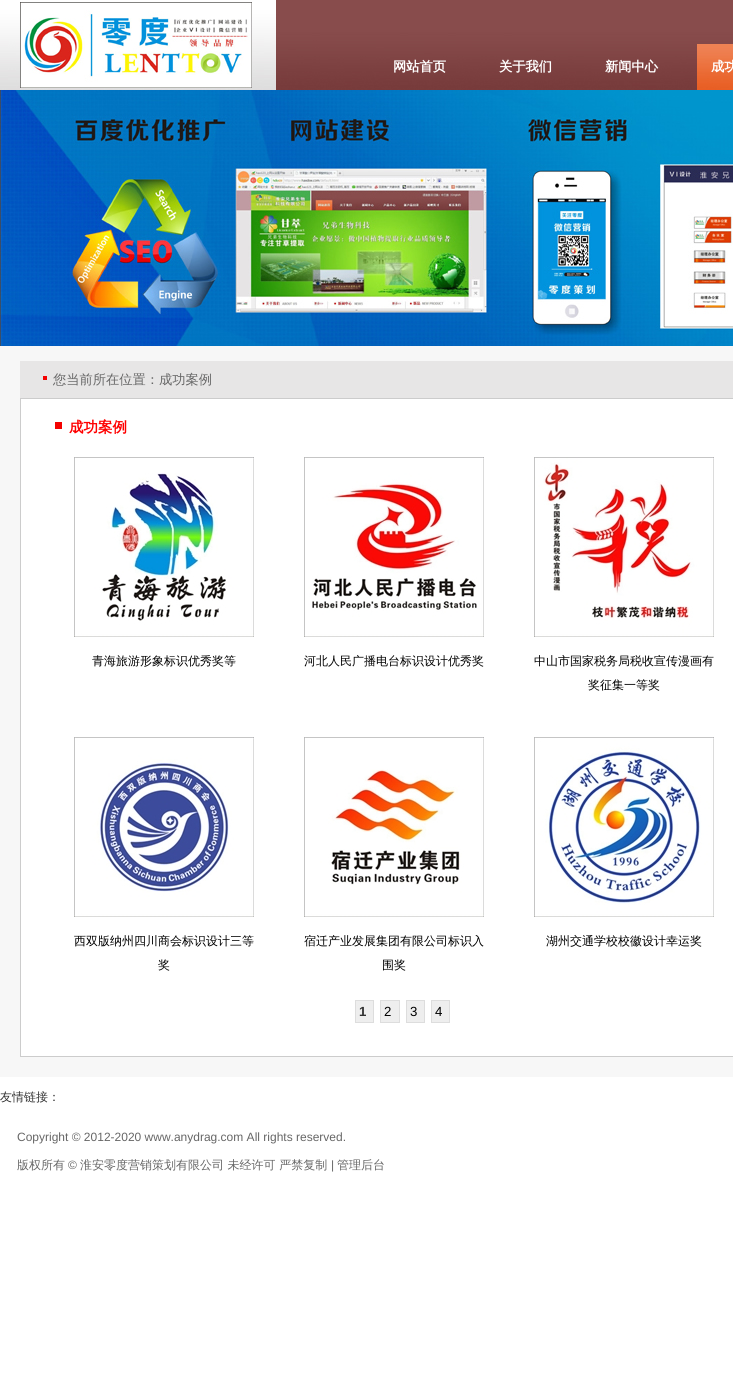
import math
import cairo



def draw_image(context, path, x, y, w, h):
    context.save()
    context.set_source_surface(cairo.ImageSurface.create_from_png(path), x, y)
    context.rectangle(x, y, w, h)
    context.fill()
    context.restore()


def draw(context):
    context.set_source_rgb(1, 1, 1)
    context.paint()
    draw_image(context, "images/1.png", 0, 0, 733, 90)
    draw_image(context, "images/2.png", 20, 2, 232, 86)
    draw_image(context, "images/3.png", 697, 44, 36, 46)
    draw_image(context, "images/4.png", 0, 90, 733, 256)
    context.set_source_rgb(247 / 255, 247 / 255, 247 / 255)
    context.rectangle(0, 346, 733, 731)
    context.fill()
    context.set_source_rgb(231 / 255, 230 / 255, 230 / 255)
    context.rectangle(20, 361, 713, 37)
    context.fill()
    context.set_source_rgb(244 / 255, 2 / 255, 1 / 255)
    context.rectangle(43, 376, 4, 4)
    context.fill()
    context.set_source_rgb(204 / 255, 204 / 255, 204 / 255)
    context.rectangle(20, 398, 713, 1)
    context.fill()
    context.set_source_rgb(1, 1, 1)
    context.rectangle(21, 399, 712, 657)
    context.fill()
    context.set_source_rgb(204 / 255, 204 / 255, 204 / 255)
    context.rectangle(20, 1056, 713, 1)
    context.fill()
    context.rectangle(20, 399, 1, 657)
    context.fill()
    context.set_source_rgb(244 / 255, 2 / 255, 1 / 255)
    context.rectangle(55, 422, 7, 7)
    context.fill()
    draw_image(context, "images/5.png", 74, 457, 180, 180)
    draw_image(context, "images/6.png", 304, 457, 180, 180)
    draw_image(context, "images/7.png", 534, 457, 180, 180)
    draw_image(context, "images/8.png", 74, 737, 180, 180)
    draw_image(context, "images/9.png", 304, 737, 180, 180)
    draw_image(context, "images/10.png", 534, 737, 180, 180)
    context.set_source_rgb(238 / 255, 238 / 255, 238 / 255)
    context.rectangle(355.5, 1000.5, 18, 22)
    context.fill_preserve()
    context.set_source_rgb(221 / 255, 221 / 255, 221 / 255)
    context.set_line_width(1)
    context.stroke()
    context.set_source_rgb(238 / 255, 238 / 255, 238 / 255)
    context.rectangle(380.5, 1000.5, 19, 22)
    context.fill_preserve()
    context.set_source_rgb(221 / 255, 221 / 255, 221 / 255)
    context.stroke()
    context.set_source_rgb(238 / 255, 238 / 255, 238 / 255)
    context.rectangle(406.5, 1000.5, 18, 22)
    context.fill_preserve()
    context.set_source_rgb(221 / 255, 221 / 255, 221 / 255)
    context.stroke()
    context.set_source_rgb(238 / 255, 238 / 255, 238 / 255)
    context.rectangle(431.5, 1000.5, 18, 22)
    context.fill_preserve()
    context.set_source_rgb(221 / 255, 221 / 255, 221 / 255)
    context.stroke()
    context.select_font_face("WenQuanYi Zen Hei", cairo.FontSlant.NORMAL, cairo.FontWeight.BOLD)
    context.set_font_size(13.25)
    context.set_source_rgb(1, 1, 1)
    context.move_to(393, 71)
    context.show_text("网站首页")
    context.move_to(499, 71)
    context.show_text("关于我们")
    context.move_to(605, 71)
    context.show_text("新闻中心")
    context.move_to(711, 71)
    context.show_text("成功")
    context.select_font_face("WenQuanYi Zen Hei Medium")
    context.set_source_rgb(102 / 255, 102 / 255, 102 / 255)
    context.move_to(53, 384)
    context.show_text("您当前所在位置：成功案例")
    context.select_font_face("WenQuanYi Zen Hei", cairo.FontSlant.NORMAL, cairo.FontWeight.BOLD)
    context.set_font_size(14.5)
    context.set_source_rgb(1, 0, 0)
    context.move_to(69, 432)
    context.show_text("成功案例")
    context.select_font_face("WenQuanYi Zen Hei Medium")
    context.set_font_size(12)
    context.set_source_rgb(0, 0, 0)
    context.move_to(92, 665)
    context.show_text("青海旅游形象标识优秀奖等")
    context.move_to(304, 665)
    context.show_text("河北人民广播电台标识设计优秀奖")
    context.move_to(534, 665)
    context.show_text("中山市国家税务局税收宣传漫画有")
    context.move_to(588, 689)
    context.show_text("奖征集一等奖")
    context.move_to(74, 945)
    context.show_text("西双版纳州四川商会标识设计三等")
    context.move_to(158, 969)
    context.show_text("奖")
    context.move_to(304, 945)
    context.show_text("宿迁产业发展集团有限公司标识入")
    context.move_to(382, 969)
    context.show_text("围奖")
    context.move_to(546, 945)
    context.show_text("湖州交通学校校徽设计幸运奖")
    context.select_font_face("Liberation Sans", cairo.FontSlant.NORMAL, cairo.FontWeight.BOLD)
    context.set_font_size(13.25)
    context.set_source_rgb(51 / 255, 51 / 255, 51 / 255)
    context.move_to(359, 1016)
    context.show_text("1")
    context.select_font_face("Liberation Sans")
    context.set_source_rgb(0, 0, 0)
    context.move_to(384, 1016)
    context.show_text("2")
    context.move_to(410, 1016)
    context.show_text("3")
    context.move_to(435, 1016)
    context.show_text("4")
    context.select_font_face("WenQuanYi Zen Hei Medium")
    context.set_font_size(12)
    context.set_source_rgb(51 / 255, 51 / 255, 51 / 255)
    context.move_to(0, 1101)
    context.show_text("友情链接：")
    context.select_font_face("Liberation Sans")
    context.set_source_rgb(102 / 255, 102 / 255, 102 / 255)
    context.move_to(17, 1141)
    context.show_text("Copyright © 2012-2020 www.anydrag.com All rights reserved.")
    context.select_font_face("WenQuanYi Zen Hei Medium")
    context.move_to(17, 1169)
    context.show_text("版权所有")
    context.select_font_face("Liberation Sans")
    context.move_to(68, 1169)
    context.show_text("©")
    context.select_font_face("WenQuanYi Zen Hei Medium")
    context.move_to(80, 1169)
    context.show_text("淮安零度营销策划有限公司 未经许可 严禁复制")
    context.select_font_face("Liberation Sans")
    context.move_to(331, 1169)
    context.show_text("|")
    context.select_font_face("WenQuanYi Zen Hei Medium")
    context.move_to(337, 1169)
    context.show_text("管理后台")


surface = cairo.ImageSurface(cairo.Format.RGB24, 733, 1386)
context = cairo.Context(surface)
options = cairo.FontOptions()
options.set_hint_metrics(cairo.HintMetrics.OFF)
options.set_hint_style(cairo.HintStyle.NONE)
context.set_font_options(options)
context.set_miter_limit(4)
draw(context)
surface.write_to_png("out.png")
